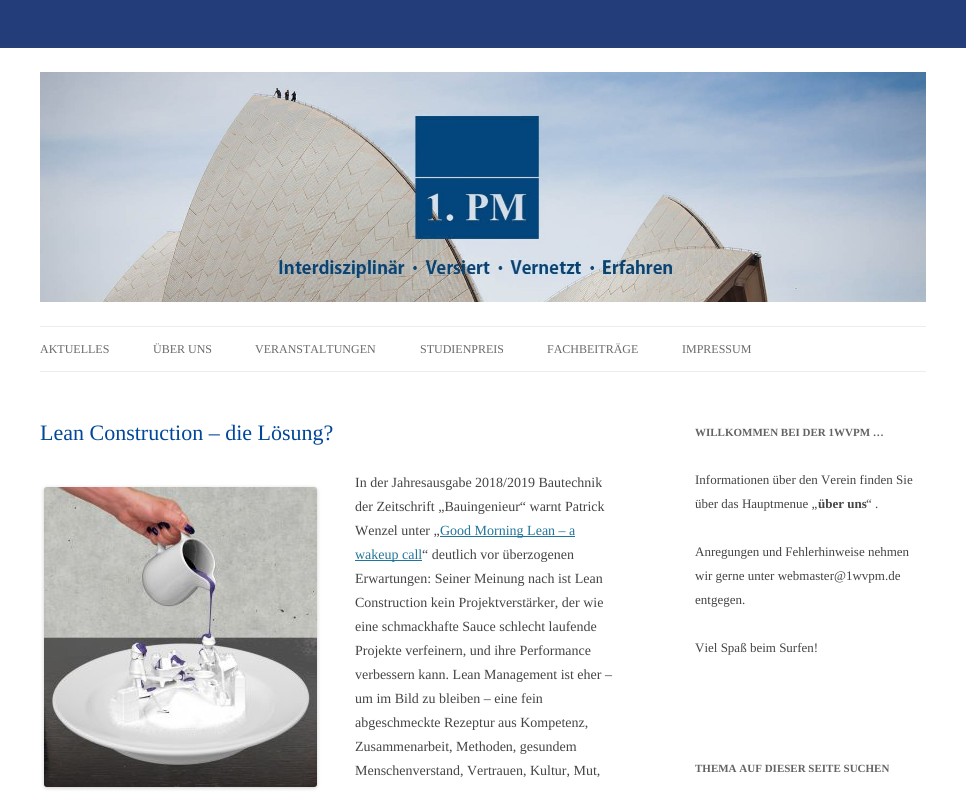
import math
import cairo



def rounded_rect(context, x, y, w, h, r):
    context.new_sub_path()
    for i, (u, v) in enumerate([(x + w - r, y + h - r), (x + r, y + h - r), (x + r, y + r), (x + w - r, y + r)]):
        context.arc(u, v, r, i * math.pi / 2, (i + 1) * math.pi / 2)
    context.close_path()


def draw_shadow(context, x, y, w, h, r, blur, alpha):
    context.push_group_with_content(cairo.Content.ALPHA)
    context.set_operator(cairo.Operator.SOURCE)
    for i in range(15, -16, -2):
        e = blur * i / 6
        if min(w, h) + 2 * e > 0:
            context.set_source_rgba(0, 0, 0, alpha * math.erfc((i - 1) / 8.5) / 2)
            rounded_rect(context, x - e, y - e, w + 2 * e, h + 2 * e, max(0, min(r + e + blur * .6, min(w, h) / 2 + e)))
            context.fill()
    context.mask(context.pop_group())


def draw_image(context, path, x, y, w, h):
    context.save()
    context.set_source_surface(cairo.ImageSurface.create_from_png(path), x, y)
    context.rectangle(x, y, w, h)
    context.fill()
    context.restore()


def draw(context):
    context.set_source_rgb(35 / 255, 61 / 255, 122 / 255)
    context.paint()
    context.set_source_rgb(100 / 255, 100 / 255, 100 / 255)
    draw_shadow(context, 0, 50, 966, 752, 0, 3, 0.3)
    context.set_source_rgb(1, 1, 1)
    context.rectangle(0, 48, 966, 745)
    context.fill()
    draw_image(context, "images/1.png", 40, 72, 886, 230)
    context.set_source_rgb(237 / 255, 237 / 255, 237 / 255)
    context.rectangle(40, 326, 886, 1)
    context.fill()
    context.rectangle(40, 371, 886, 1)
    context.fill()
    context.set_source_rgb(0, 0, 0)
    draw_shadow(context, 44, 488, 273, 300, 3, 2, 0.2)
    draw_image(context, "images/2.png", 44, 487, 273, 300)
    context.set_source_rgb(33 / 255, 117 / 255, 155 / 255)
    context.rectangle(440, 536, 135, 1)
    context.fill()
    context.rectangle(355, 560, 67, 1)
    context.fill()
    context.select_font_face("Liberation Serif")
    context.set_font_size(12)
    context.set_source_rgb(106 / 255, 106 / 255, 106 / 255)
    context.move_to(40, 353)
    context.show_text("AKTUELLES")
    context.move_to(153, 353)
    context.show_text("ÜBER UNS")
    context.move_to(255, 353)
    context.show_text("VERANSTALTUNGEN")
    context.move_to(420, 353)
    context.show_text("STUDIENPREIS")
    context.move_to(547, 353)
    context.show_text("FACHBEITRÄGE")
    context.move_to(682, 353)
    context.show_text("IMPRESSUM")
    context.set_font_size(22)
    context.set_source_rgb(0, 71 / 255, 153 / 255)
    context.move_to(40, 440)
    context.show_text("Lean Construction – die Lösung?")
    context.set_font_size(14)
    context.set_source_rgb(68 / 255, 68 / 255, 68 / 255)
    context.move_to(355, 487)
    context.show_text("In der Jahresausgabe 2018/2019 Bautechnik")
    context.move_to(355, 511)
    context.show_text("der Zeitschrift „Bauingenieur“ warnt Patrick")
    context.move_to(355, 535)
    context.show_text("Wenzel unter „")
    context.set_source_rgb(33 / 255, 117 / 255, 155 / 255)
    context.move_to(440, 535)
    context.show_text("Good Morning Lean – a")
    context.move_to(355, 559)
    context.show_text("wakeup call")
    context.set_source_rgb(68 / 255, 68 / 255, 68 / 255)
    context.move_to(422, 559)
    context.show_text("“ deutlich vor überzogenen")
    context.move_to(355, 583)
    context.show_text("Erwartungen: Seiner Meinung nach ist Lean")
    context.move_to(355, 607)
    context.show_text("Construction kein Projektverstärker, der wie")
    context.move_to(355, 631)
    context.show_text("eine schmackhafte Sauce schlecht laufende")
    context.move_to(355, 655)
    context.show_text("Projekte verfeinern, und ihre Performance")
    context.move_to(355, 679)
    context.show_text("verbessern kann. Lean Management ist eher –")
    context.move_to(355, 703)
    context.show_text("um im Bild zu bleiben – eine fein")
    context.move_to(355, 727)
    context.show_text("abgeschmeckte Rezeptur aus Kompetenz,")
    context.move_to(355, 751)
    context.show_text("Zusammenarbeit, Methoden, gesundem")
    context.move_to(355, 775)
    context.show_text("Menschenverstand, Vertrauen, Kultur, Mut,")
    context.select_font_face("Liberation Serif", cairo.FontSlant.NORMAL, cairo.FontWeight.BOLD)
    context.set_font_size(11)
    context.set_source_rgb(99 / 255, 99 / 255, 99 / 255)
    context.move_to(695, 436)
    context.show_text("WILLKOMMEN BEI DER 1WVPM …")
    context.select_font_face("Liberation Serif")
    context.set_font_size(13)
    context.set_source_rgb(68 / 255, 68 / 255, 68 / 255)
    context.move_to(695, 484)
    context.show_text("Informationen über den Verein finden Sie")
    context.move_to(695, 508)
    context.show_text("über das Hauptmenue „")
    context.select_font_face("Liberation Serif", cairo.FontSlant.NORMAL, cairo.FontWeight.BOLD)
    context.move_to(818, 508)
    context.show_text("über uns")
    context.select_font_face("Liberation Serif")
    context.move_to(866, 508)
    context.show_text("“ .")
    context.move_to(695, 556)
    context.show_text("Anregungen und Fehlerhinweise nehmen")
    context.move_to(695, 580)
    context.show_text("wir gerne unter webmaster@1wvpm.de")
    context.move_to(695, 604)
    context.show_text("entgegen.")
    context.move_to(695, 652)
    context.show_text("Viel Spaß beim Surfen!")
    context.select_font_face("Liberation Serif", cairo.FontSlant.NORMAL, cairo.FontWeight.BOLD)
    context.set_font_size(11)
    context.set_source_rgb(99 / 255, 99 / 255, 99 / 255)
    context.move_to(695, 772)
    context.show_text("THEMA AUF DIESER SEITE SUCHEN")


surface = cairo.ImageSurface(cairo.Format.RGB24, 966, 793)
context = cairo.Context(surface)
options = cairo.FontOptions()
options.set_hint_metrics(cairo.HintMetrics.OFF)
options.set_hint_style(cairo.HintStyle.NONE)
context.set_font_options(options)
context.set_miter_limit(4)
draw(context)
surface.write_to_png("out.png")
